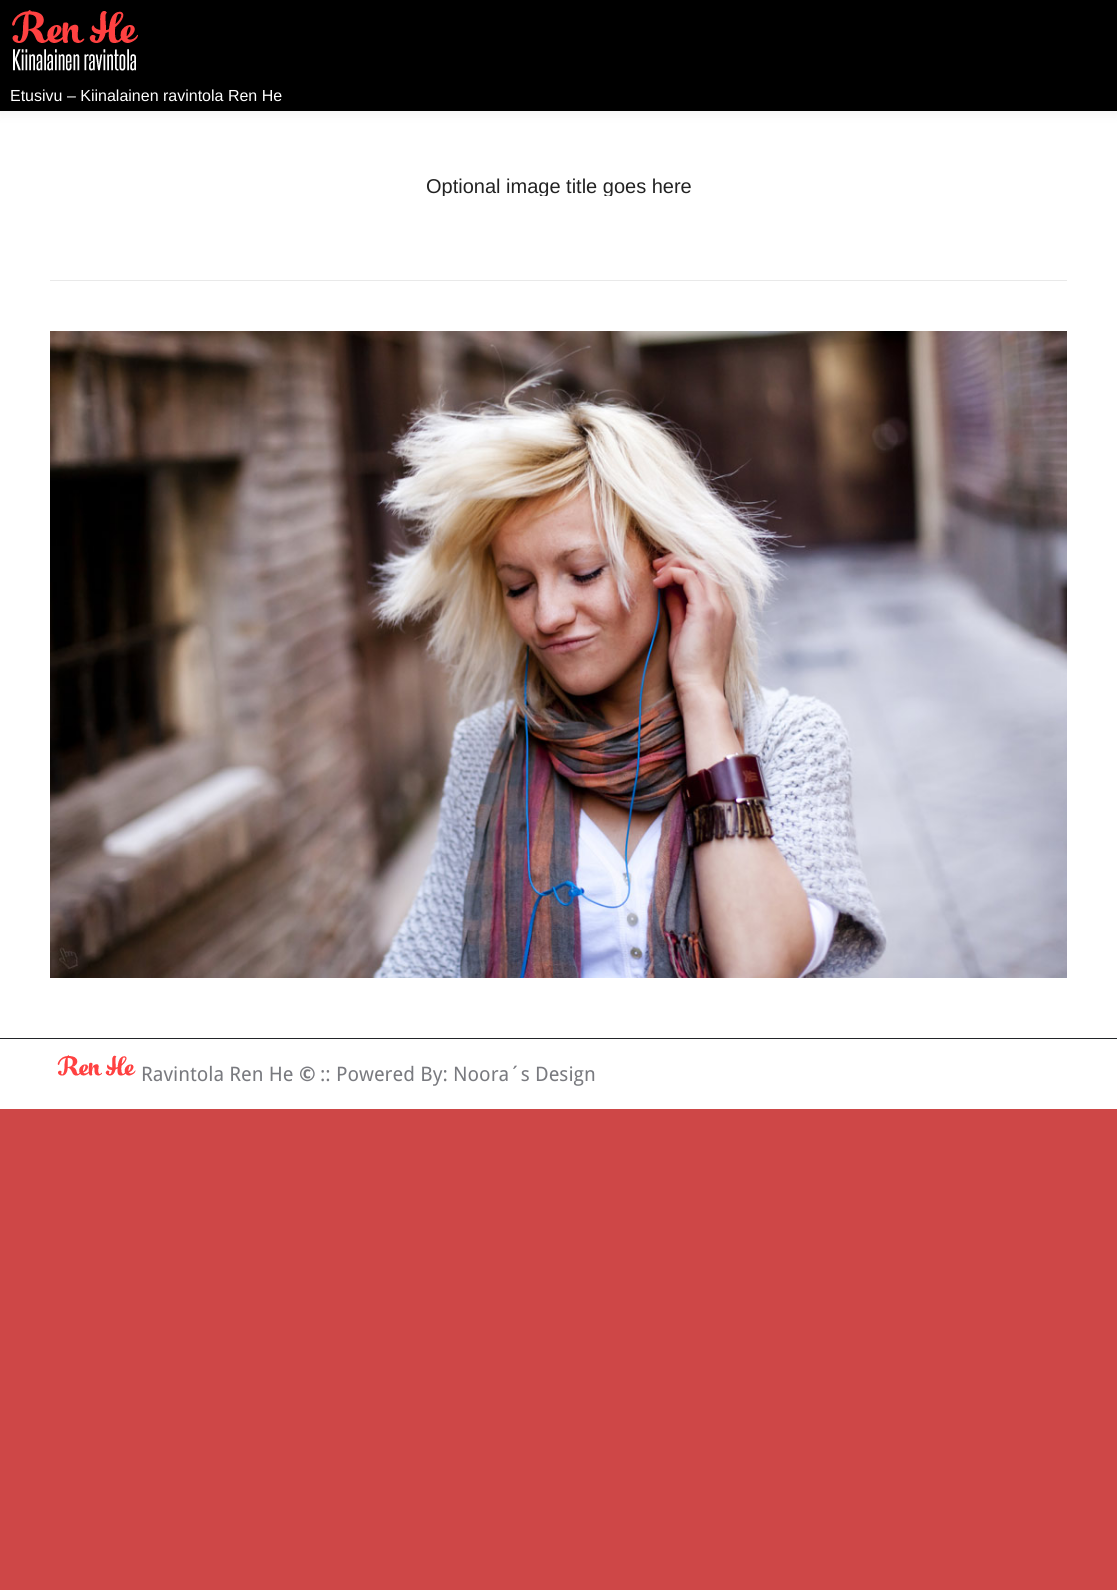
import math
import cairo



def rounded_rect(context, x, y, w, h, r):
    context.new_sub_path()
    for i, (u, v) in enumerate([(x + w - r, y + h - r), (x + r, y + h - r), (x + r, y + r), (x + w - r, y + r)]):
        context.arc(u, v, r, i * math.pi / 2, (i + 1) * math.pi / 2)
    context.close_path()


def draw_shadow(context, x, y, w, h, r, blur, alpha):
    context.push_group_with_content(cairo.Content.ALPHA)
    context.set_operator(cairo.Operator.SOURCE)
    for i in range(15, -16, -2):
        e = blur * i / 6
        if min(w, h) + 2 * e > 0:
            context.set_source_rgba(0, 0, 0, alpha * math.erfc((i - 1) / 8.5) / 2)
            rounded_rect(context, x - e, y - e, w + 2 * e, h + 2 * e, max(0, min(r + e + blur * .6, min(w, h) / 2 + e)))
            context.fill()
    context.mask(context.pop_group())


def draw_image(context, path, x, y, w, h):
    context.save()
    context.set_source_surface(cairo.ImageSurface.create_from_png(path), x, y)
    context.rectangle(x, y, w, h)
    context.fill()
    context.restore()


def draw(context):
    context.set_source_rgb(206 / 255, 71 / 255, 71 / 255)
    context.paint()
    context.set_source_rgb(1, 1, 1)
    context.rectangle(0, 111, 1117, 998)
    context.fill()
    context.set_source_rgb(0, 0, 0)
    draw_shadow(context, -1, -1, 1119, 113, 0, 7.5, 0.07)
    context.set_source_rgb(0, 0, 0)
    context.rectangle(0, 0, 1117, 111)
    context.fill()
    draw_image(context, "images/1.png", 12, 10, 126, 61)
    context.set_source_rgb(233 / 255, 233 / 255, 233 / 255)
    context.rectangle(50, 280, 1017, 1)
    context.fill()
    draw_image(context, "images/2.png", 50, 331, 1017, 647)
    context.set_source_rgb(34 / 255, 36 / 255, 40 / 255)
    context.rectangle(0, 1038, 1117, 1)
    context.fill()
    draw_image(context, "images/3.png", 57, 1055, 79, 21)
    context.select_font_face("Liberation Sans")
    context.set_font_size(16)
    context.set_source_rgb(1, 1, 1)
    context.move_to(10, 101)
    context.show_text("Etusivu – Kiinalainen ravintola Ren He")
    context.save()
    context.rectangle(426, 176, 265, 20)
    context.clip()
    context.set_font_size(20)
    context.set_source_rgb(34 / 255, 34 / 255, 34 / 255)
    context.move_to(426, 193)
    context.show_text("Optional image title goes here")
    context.restore()
    context.select_font_face("Droid Sans")
    context.set_font_size(20)
    context.set_source_rgb(121 / 255, 122 / 255, 127 / 255)
    context.move_to(141, 1081)
    context.show_text("Ravintola Ren He")
    context.select_font_face("Droid Sans", cairo.FontSlant.NORMAL, cairo.FontWeight.BOLD)
    context.move_to(299, 1081)
    context.show_text("©")
    context.select_font_face("Droid Sans")
    context.move_to(320, 1081)
    context.show_text(":: Powered By: Noora´s Design")


surface = cairo.ImageSurface(cairo.Format.RGB24, 1117, 1590)
context = cairo.Context(surface)
options = cairo.FontOptions()
options.set_hint_metrics(cairo.HintMetrics.OFF)
options.set_hint_style(cairo.HintStyle.NONE)
context.set_font_options(options)
context.set_miter_limit(4)
draw(context)
surface.write_to_png("out.png")
